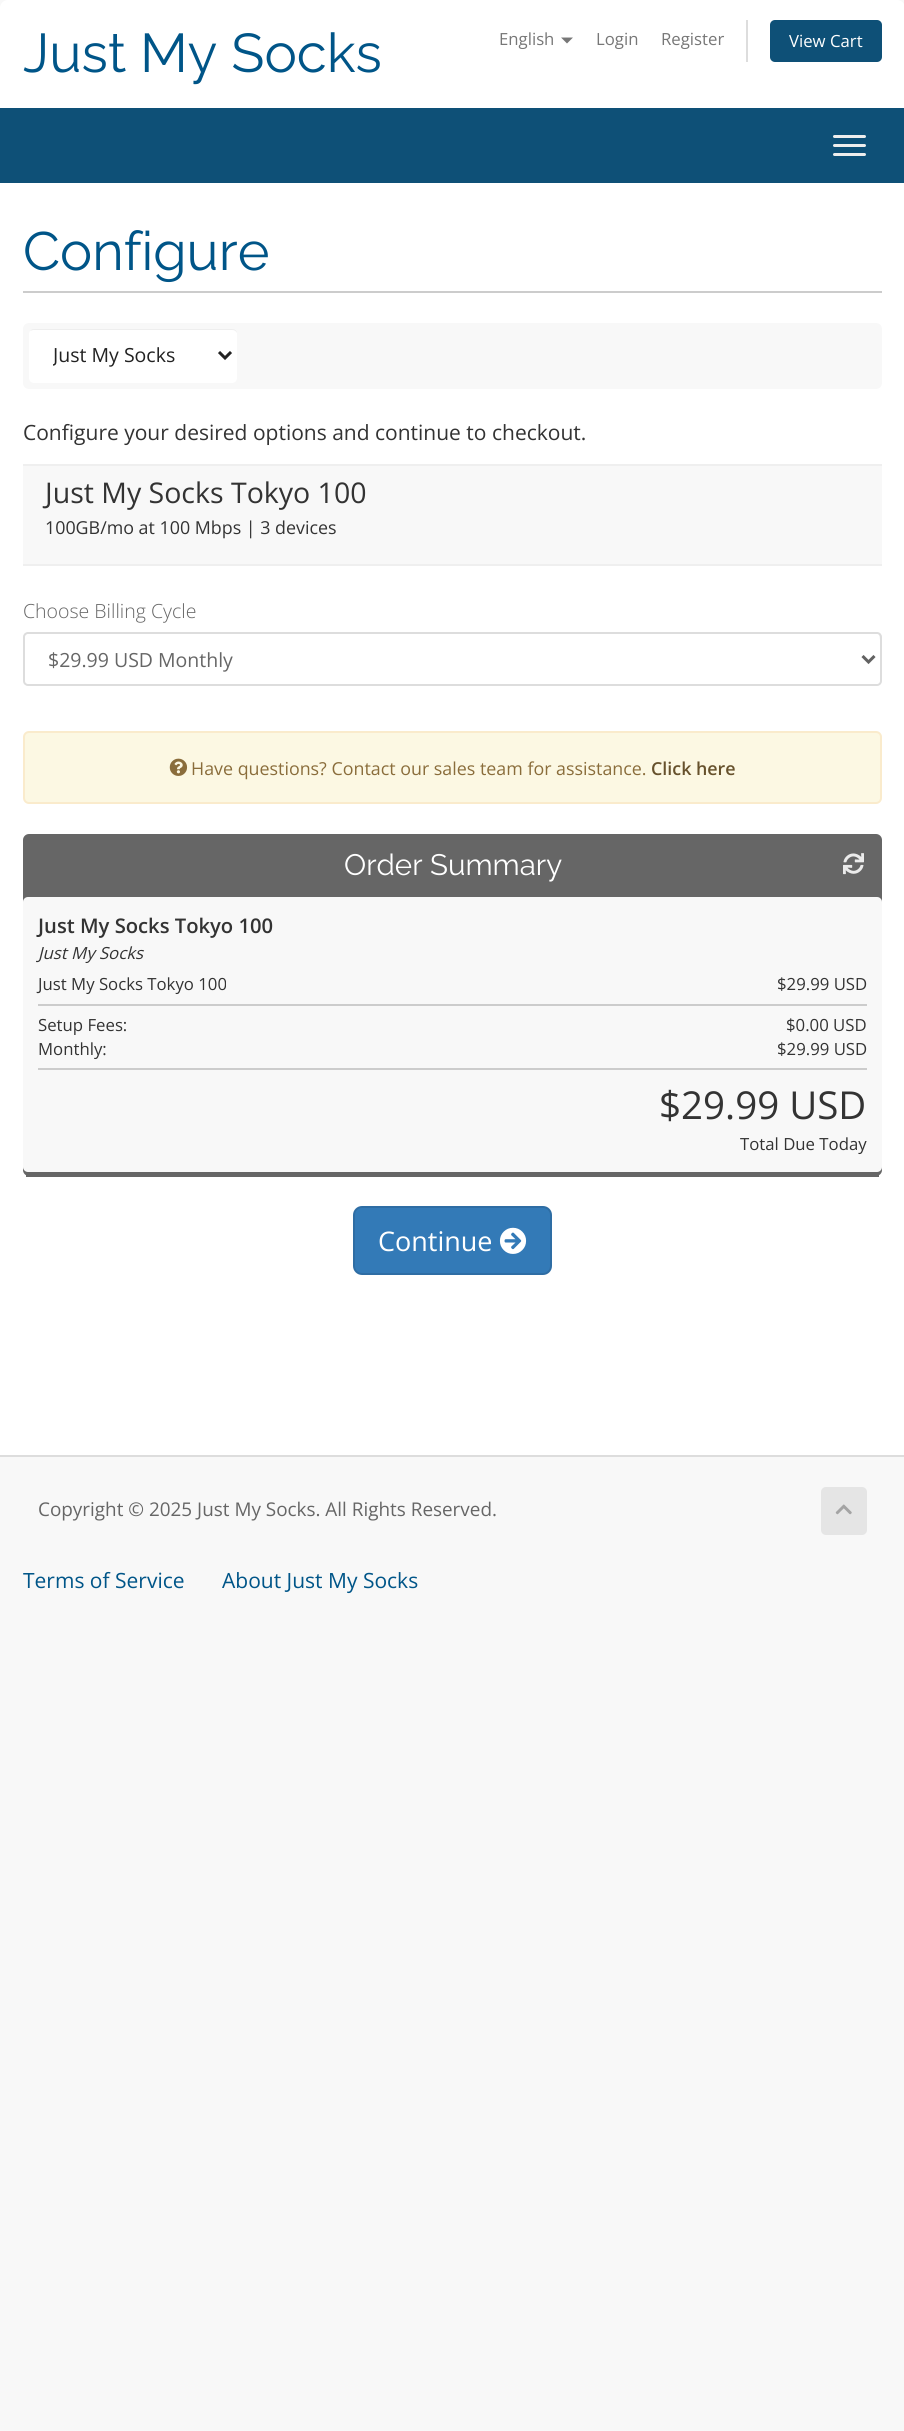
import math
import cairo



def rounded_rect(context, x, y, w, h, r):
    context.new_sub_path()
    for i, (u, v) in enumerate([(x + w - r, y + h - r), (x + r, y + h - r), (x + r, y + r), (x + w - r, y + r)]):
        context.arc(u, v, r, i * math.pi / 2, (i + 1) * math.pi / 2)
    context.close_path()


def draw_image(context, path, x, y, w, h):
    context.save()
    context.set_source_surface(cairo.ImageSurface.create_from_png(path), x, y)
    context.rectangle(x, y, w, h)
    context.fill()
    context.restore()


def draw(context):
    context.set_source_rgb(248 / 255, 248 / 255, 248 / 255)
    context.paint()
    context.set_source_rgb(1, 1, 1)
    context.new_path()
    context.move_to(8, 0)
    context.line_to(897, 0)
    context.curve_to(901.5, 0, 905, 3.5, 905, 8)
    context.line_to(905, 108)
    context.line_to(0, 108)
    context.line_to(0, 8)
    context.curve_to(0, 3.5, 3.5, 0, 8, 0)
    context.close_path()
    context.fill()
    context.set_source_rgb(119 / 255, 119 / 255, 119 / 255)
    context.new_path()
    context.move_to(561, 37.5)
    context.line_to(573, 37.5)
    context.line_to(567, 43.5)
    context.close_path()
    context.fill()
    context.set_source_rgb(221 / 255, 221 / 255, 221 / 255)
    context.rectangle(746, 20, 2, 42)
    context.fill()
    context.set_source_rgb(14 / 255, 80 / 255, 119 / 255)
    rounded_rect(context, 770, 20, 112, 42, 5)
    context.fill()
    context.rectangle(0, 108, 904, 75)
    context.fill()
    context.set_source_rgb(238 / 255, 238 / 255, 238 / 255)
    rounded_rect(context, 833, 135, 33, 3, 1.5)
    context.fill()
    rounded_rect(context, 833, 144, 33, 3, 1.5)
    context.fill()
    rounded_rect(context, 833, 153, 33, 3, 1.5)
    context.fill()
    context.set_source_rgb(1, 1, 1)
    context.rectangle(0, 183, 904, 1272)
    context.fill()
    context.set_source_rgb(204 / 255, 204 / 255, 204 / 255)
    context.rectangle(23, 291, 859, 2)
    context.fill()
    context.set_source_rgb(248 / 255, 248 / 255, 248 / 255)
    rounded_rect(context, 23, 323, 859, 66, 6)
    context.fill()
    context.set_source_rgb(1, 1, 1)
    rounded_rect(context, 29, 329, 208, 54, 5)
    context.fill()
    context.set_source_rgba(0, 0, 0, 0.07)
    context.new_path()
    context.move_to(33, 330)
    context.line_to(232, 330)
    context.curve_to(235, 330, 237, 332, 237, 334)
    context.curve_to(237, 331, 235, 329, 232, 329)
    context.line_to(34, 329)
    context.curve_to(32, 329, 31, 330, 30, 331)
    context.close_path()
    context.fill()
    context.new_path()
    context.move_to(219, 352)
    context.line_to(225, 358)
    context.line_to(231, 352)
    context.set_source_rgb(34 / 255, 34 / 255, 34 / 255)
    context.set_line_width(3)
    context.stroke()
    context.set_source_rgb(248 / 255, 248 / 255, 248 / 255)
    context.rectangle(23, 466, 859, 98)
    context.fill()
    context.set_source_rgb(239 / 255, 239 / 255, 239 / 255)
    context.rectangle(23, 464, 859, 2)
    context.fill()
    context.rectangle(23, 564, 859, 2)
    context.fill()
    context.set_source_rgb(236 / 255, 236 / 255, 236 / 255)
    context.new_path()
    context.move_to(27, 634)
    context.line_to(878, 634)
    context.curve_to(881, 634, 880, 651, 880, 653)
    context.line_to(880, 683)
    context.curve_to(881, 683, 881, 682, 881, 681)
    context.line_to(881, 636)
    context.curve_to(881, 634, 880, 633, 878, 633)
    context.line_to(27, 633)
    context.curve_to(25, 633, 24, 634, 24, 636)
    context.line_to(24, 638)
    context.curve_to(24, 636, 25, 634, 27, 634)
    context.close_path()
    context.fill()
    rounded_rect(context, 24, 633, 857, 52, 4)
    context.set_source_rgb(221 / 255, 221 / 255, 221 / 255)
    context.set_line_width(2)
    context.stroke()
    context.new_path()
    context.move_to(862.5, 656)
    context.line_to(868.5, 662)
    context.line_to(874.5, 656)
    context.set_source_rgb(98 / 255, 98 / 255, 98 / 255)
    context.set_line_width(3)
    context.stroke()
    context.set_source_rgb(252 / 255, 248 / 255, 227 / 255)
    rounded_rect(context, 24, 732, 857, 71, 5)
    context.fill_preserve()
    context.set_source_rgb(250 / 255, 235 / 255, 204 / 255)
    context.set_line_width(2)
    context.stroke()
    draw_image(context, "images/1.png", 169, 758, 19, 18)
    context.set_source_rgb(102 / 255, 102 / 255, 102 / 255)
    rounded_rect(context, 23, 834, 859, 342, 6)
    context.fill()
    context.rectangle(26, 1175, 853, 2)
    context.fill()
    draw_image(context, "images/2.png", 843, 853, 21, 22)
    context.set_source_rgb(248 / 255, 248 / 255, 248 / 255)
    rounded_rect(context, 23, 897, 859, 275, 5)
    context.fill()
    context.set_source_rgb(204 / 255, 204 / 255, 204 / 255)
    context.rectangle(38, 1004, 829, 2)
    context.fill()
    context.rectangle(38, 1068, 829, 2)
    context.fill()
    context.set_source_rgb(51 / 255, 122 / 255, 183 / 255)
    rounded_rect(context, 354, 1207, 197, 67, 8)
    context.fill_preserve()
    context.set_source_rgb(46 / 255, 109 / 255, 164 / 255)
    context.stroke()
    draw_image(context, "images/3.png", 499, 1227, 28, 27)
    context.set_source_rgb(221 / 255, 221 / 255, 221 / 255)
    context.rectangle(0, 1455, 904, 2)
    context.fill()
    context.set_source_rgb(229 / 255, 229 / 255, 229 / 255)
    rounded_rect(context, 821, 1487, 46, 48, 5)
    context.fill()
    draw_image(context, "images/4.png", 835, 1504, 17, 11)
    context.select_font_face("Raleway")
    context.set_font_size(54.5)
    context.set_source_rgb(0, 85 / 255, 136 / 255)
    context.move_to(23, 72)
    context.show_text("Just My Socks")
    context.select_font_face("Open Sans")
    context.set_font_size(16.75)
    context.set_source_rgb(119 / 255, 119 / 255, 119 / 255)
    context.move_to(499, 45)
    context.show_text("English")
    context.move_to(596, 45)
    context.show_text("Login")
    context.move_to(661, 45)
    context.show_text("Register")
    context.set_source_rgb(1, 1, 1)
    context.move_to(789, 47)
    context.show_text("View Cart")
    context.select_font_face("Raleway")
    context.set_font_size(54)
    context.set_source_rgb(0, 85 / 255, 136 / 255)
    context.move_to(23, 270)
    context.show_text("Configure")
    context.save()
    context.rectangle(53, 341, 142, 30)
    context.clip()
    context.select_font_face("Open Sans")
    context.set_font_size(19.5)
    context.set_source_rgb(34 / 255, 34 / 255, 34 / 255)
    context.move_to(53, 362)
    context.show_text("Just My Socks")
    context.restore()
    context.select_font_face("Open Sans")
    context.set_font_size(21)
    context.set_source_rgb(51 / 255, 51 / 255, 51 / 255)
    context.move_to(23, 440)
    context.show_text("Configure your desired options and continue to checkout.")
    context.set_font_size(28.5)
    context.move_to(45, 503)
    context.show_text("Just My Socks Tokyo 100")
    context.set_font_size(17.85)
    context.move_to(45, 534)
    context.show_text("100GB/mo at 100 Mbps | 3 devices")
    context.select_font_face("Open Sans Light")
    context.set_font_size(19.5)
    context.set_source_rgb(102 / 255, 102 / 255, 102 / 255)
    context.move_to(23, 618)
    context.show_text("Choose Billing Cycle")
    context.select_font_face("Open Sans")
    context.move_to(48, 667)
    context.show_text("$29.99 USD Monthly")
    context.set_font_size(17.85)
    context.set_source_rgb(138 / 255, 109 / 255, 59 / 255)
    context.move_to(191, 775)
    context.show_text("Have questions? Contact our sales team for assistance.")
    context.select_font_face("Open Sans SemiBold")
    context.set_source_rgb(102 / 255, 81 / 255, 44 / 255)
    context.move_to(651, 775)
    context.show_text("Click here")
    context.select_font_face("Raleway")
    context.set_font_size(29.5)
    context.set_source_rgb(1, 1, 1)
    context.move_to(344, 875)
    context.show_text("Order Summary")
    context.select_font_face("Open Sans SemiBold")
    context.set_font_size(20.2)
    context.set_source_rgb(51 / 255, 51 / 255, 51 / 255)
    context.move_to(38, 933)
    context.show_text("Just My Socks Tokyo 100")
    context.select_font_face("Open Sans", cairo.FontSlant.ITALIC)
    context.set_font_size(16.75)
    context.move_to(38, 959)
    context.show_text("Just My Socks")
    context.select_font_face("Open Sans")
    context.move_to(38, 990)
    context.show_text("Just My Socks Tokyo 100")
    context.move_to(777, 990)
    context.show_text("$29.99 USD")
    context.move_to(38, 1031)
    context.show_text("Setup Fees:")
    context.move_to(786, 1031)
    context.show_text("$0.00 USD")
    context.move_to(38, 1055)
    context.show_text("Monthly:")
    context.move_to(777, 1055)
    context.show_text("$29.99 USD")
    context.set_font_size(38.5)
    context.move_to(659, 1119)
    context.show_text("$29.99 USD")
    context.set_font_size(16.75)
    context.move_to(740, 1150)
    context.show_text("Total Due Today")
    context.set_font_size(27)
    context.set_source_rgb(1, 1, 1)
    context.move_to(378, 1251)
    context.show_text("Continue")
    context.set_font_size(18.9)
    context.set_source_rgb(102 / 255, 102 / 255, 102 / 255)
    context.move_to(38, 1516)
    context.show_text("Copyright © 2025 Just My Socks. All Rights Reserved.")
    context.set_font_size(21)
    context.set_source_rgb(0, 85 / 255, 136 / 255)
    context.move_to(23, 1588)
    context.show_text("Terms of Service")
    context.move_to(222, 1588)
    context.show_text("About Just My Socks")


surface = cairo.ImageSurface(cairo.Format.RGB24, 904, 2431)
context = cairo.Context(surface)
options = cairo.FontOptions()
options.set_hint_metrics(cairo.HintMetrics.OFF)
options.set_hint_style(cairo.HintStyle.NONE)
context.set_font_options(options)
context.set_miter_limit(4)
draw(context)
surface.write_to_png("out.png")
